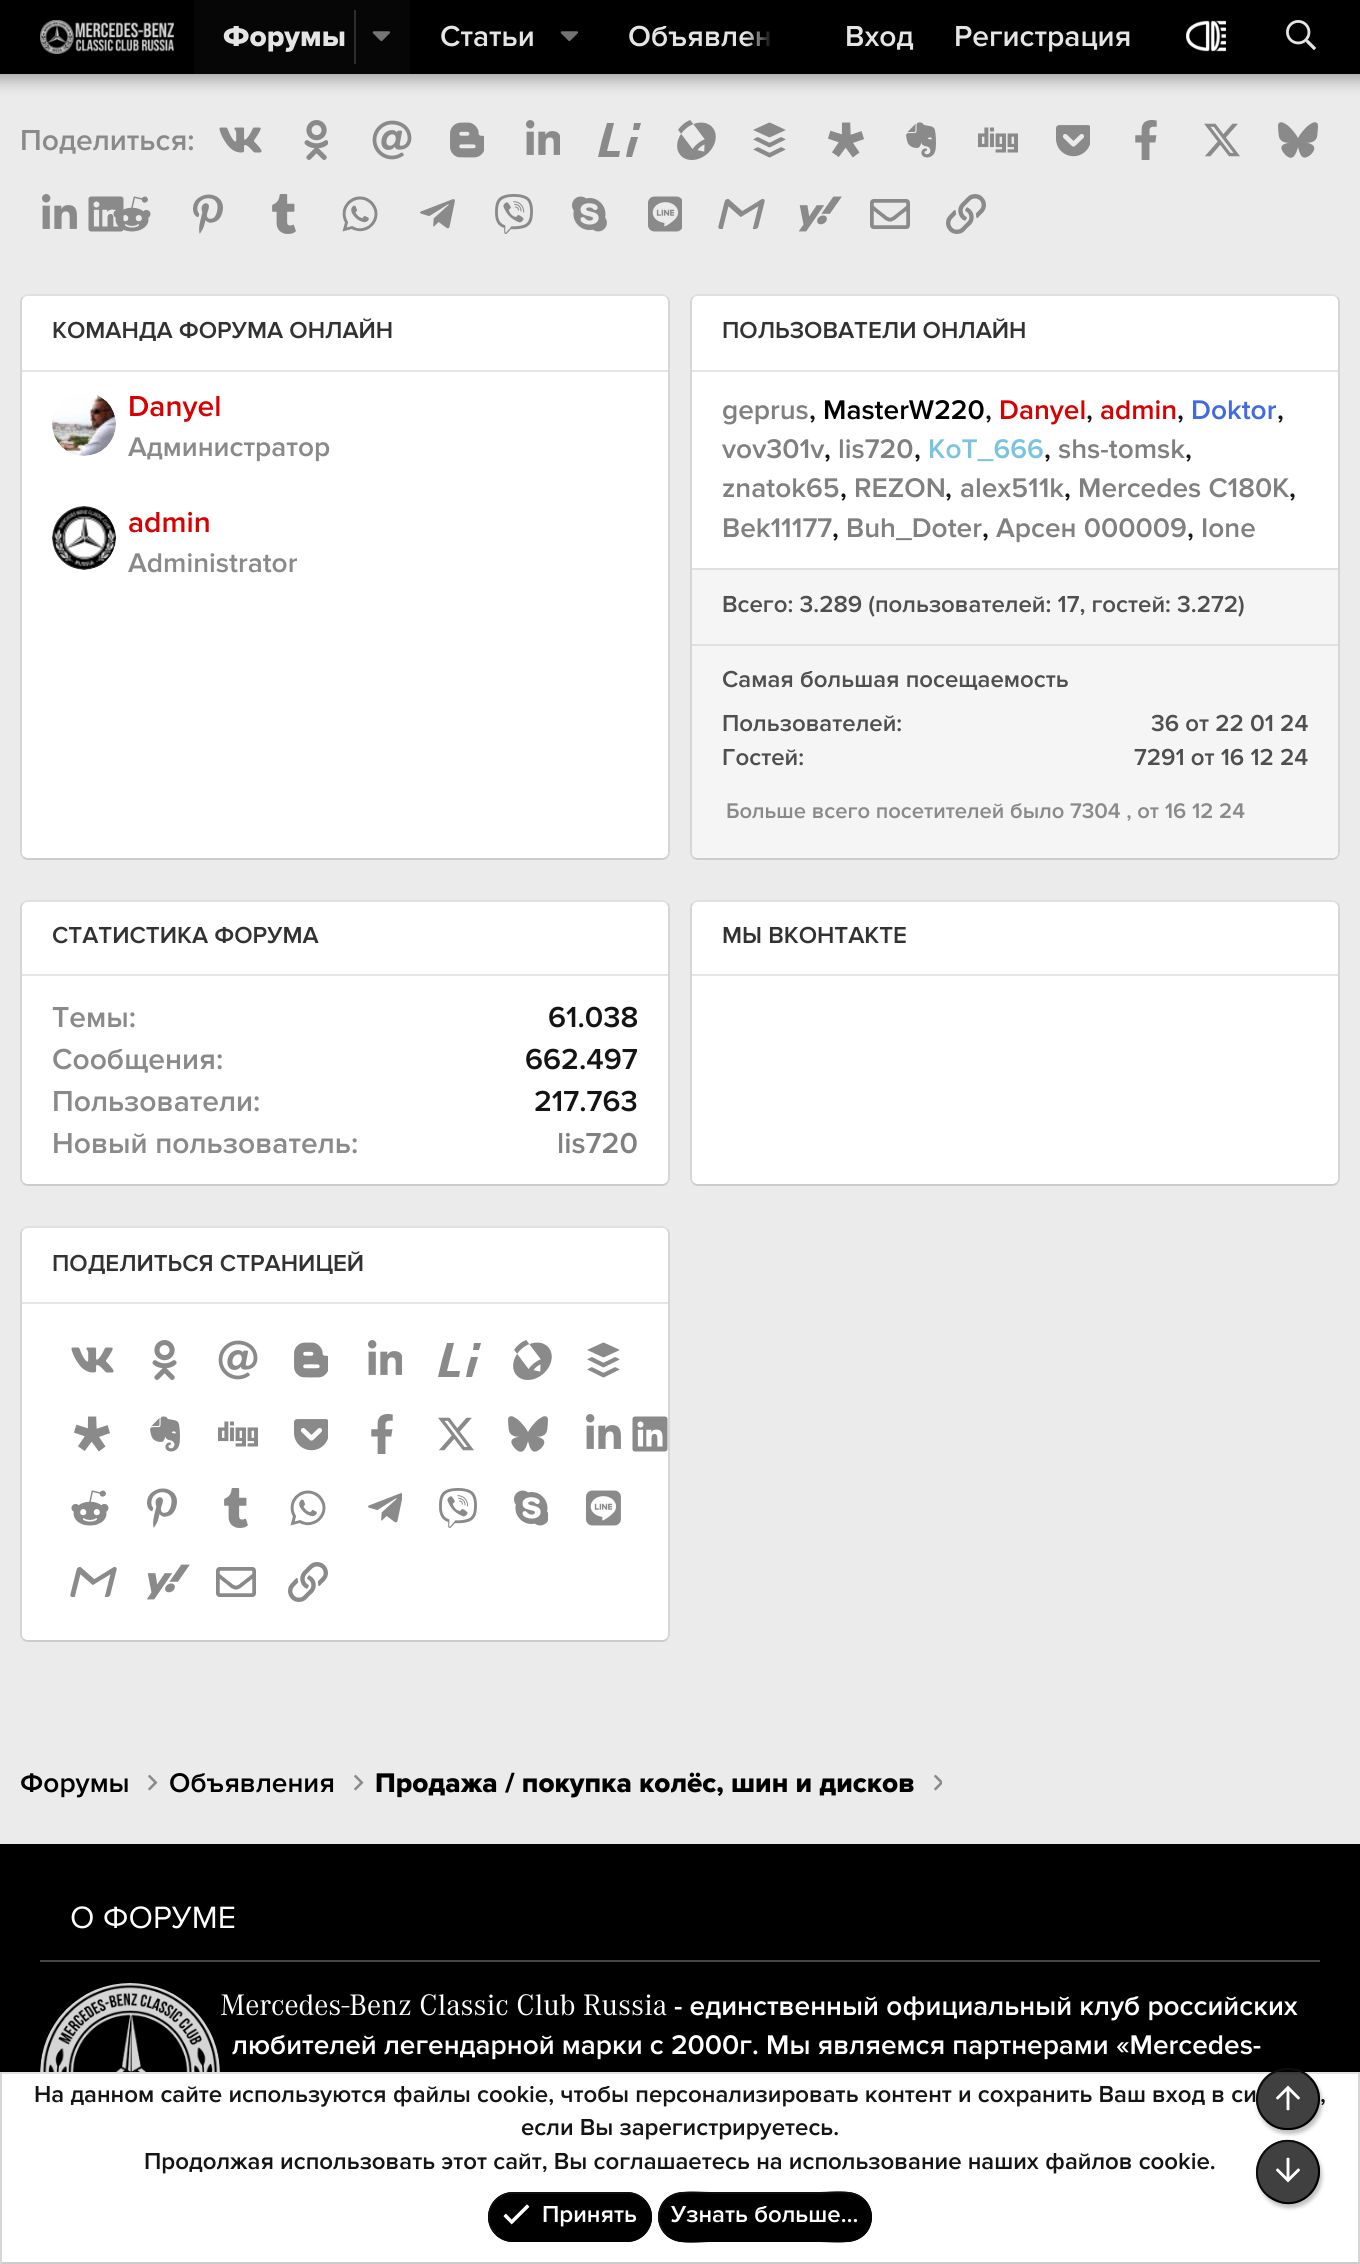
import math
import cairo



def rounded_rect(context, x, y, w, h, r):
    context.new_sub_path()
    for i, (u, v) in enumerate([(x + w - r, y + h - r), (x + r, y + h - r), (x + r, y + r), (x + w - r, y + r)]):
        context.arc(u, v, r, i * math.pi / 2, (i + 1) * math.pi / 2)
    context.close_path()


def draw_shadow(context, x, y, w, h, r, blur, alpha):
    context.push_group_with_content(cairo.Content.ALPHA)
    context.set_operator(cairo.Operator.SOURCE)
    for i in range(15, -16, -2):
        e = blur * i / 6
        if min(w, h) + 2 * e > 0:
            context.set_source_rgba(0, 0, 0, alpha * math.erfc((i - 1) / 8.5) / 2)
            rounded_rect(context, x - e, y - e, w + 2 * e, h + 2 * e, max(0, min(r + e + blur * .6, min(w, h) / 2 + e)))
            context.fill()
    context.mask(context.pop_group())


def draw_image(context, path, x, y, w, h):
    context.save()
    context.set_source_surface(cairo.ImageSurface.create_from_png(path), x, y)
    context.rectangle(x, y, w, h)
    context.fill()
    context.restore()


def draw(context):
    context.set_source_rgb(235 / 255, 235 / 255, 235 / 255)
    context.paint()
    context.set_source_rgb(0, 0, 0)
    draw_shadow(context, -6, -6, 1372, 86, 0, 8, 0.3)
    context.set_source_rgb(0, 0, 0)
    context.rectangle(0, 0, 1360, 74)
    context.fill()
    draw_image(context, "images/1.png", 40, 20, 134, 34)
    context.set_source_rgb(6 / 255, 6 / 255, 6 / 255)
    context.rectangle(194, 0, 216, 74)
    context.fill()
    context.set_source_rgb(45 / 255, 45 / 255, 45 / 255)
    context.rectangle(354, 10, 2, 54)
    context.fill()
    draw_image(context, "images/2.png", 372, 31, 18, 11)
    draw_image(context, "images/3.png", 560, 31, 18, 11)
    draw_image(context, "images/4.png", 1186, 20, 40, 32)
    draw_image(context, "images/5.png", 1286, 20, 30, 30)
    draw_image(context, "images/6.png", 219, 127, 43, 26)
    draw_image(context, "images/7.png", 304, 120, 24, 40)
    draw_image(context, "images/8.png", 372, 120, 40, 40)
    draw_image(context, "images/9.png", 450, 122, 34, 36)
    draw_image(context, "images/10.png", 526, 120, 34, 35)
    context.set_source_rgb(138 / 255, 138 / 255, 138 / 255)
    context.new_path()
    context.move_to(602, 140)
    context.line_to(607, 123)
    context.line_to(614, 123)
    context.line_to(607, 151)
    context.line_to(620, 151)
    context.line_to(619, 157)
    context.line_to(598, 157)
    context.close_path()
    context.move_to(628, 147)
    context.line_to(631, 137)
    context.line_to(638, 137)
    context.line_to(632, 157)
    context.line_to(626, 157)
    context.close_path()
    context.move_to(633, 130)
    context.line_to(634, 123)
    context.line_to(641, 123)
    context.line_to(639, 130)
    context.close_path()
    context.fill()
    draw_image(context, "images/11.png", 677, 120, 39, 40)
    draw_image(context, "images/12.png", 753, 122, 33, 36)
    draw_image(context, "images/13.png", 828, 122, 36, 36)
    draw_image(context, "images/14.png", 906, 122, 30, 36)
    draw_image(context, "images/15.png", 978, 127, 40, 26)
    draw_image(context, "images/16.png", 1056, 125, 34, 32)
    draw_image(context, "images/17.png", 1135, 120, 22, 40)
    draw_image(context, "images/18.png", 1204, 123, 36, 34)
    draw_image(context, "images/19.png", 1278, 122, 40, 36)
    draw_image(context, "images/20.png", 42, 194, 35, 35)
    draw_image(context, "images/21.png", 88, 196, 36, 36)
    draw_image(context, "images/22.png", 113, 196, 38, 36)
    draw_image(context, "images/23.png", 193, 194, 30, 40)
    draw_image(context, "images/24.png", 272, 194, 24, 40)
    draw_image(context, "images/25.png", 342, 196, 36, 36)
    draw_image(context, "images/26.png", 420, 199, 35, 30)
    draw_image(context, "images/27.png", 495, 194, 38, 40)
    draw_image(context, "images/28.png", 572, 196, 35, 36)
    draw_image(context, "images/29.png", 648, 196, 34, 36)
    draw_image(context, "images/30.png", 718, 199, 47, 30)
    draw_image(context, "images/31.png", 798, 196, 44, 36)
    draw_image(context, "images/32.png", 870, 199, 40, 30)
    draw_image(context, "images/33.png", 946, 194, 40, 40)
    context.set_source_rgb(1, 1, 1)
    rounded_rect(context, 20, 294, 650, 566, 8)
    context.fill()
    context.new_path()
    context.move_to(23, 297)
    context.curve_to(24.5, 295.5, 26, 295, 28, 295)
    context.line_to(662, 295)
    context.curve_to(664, 295, 665.5, 295.5, 667, 297)
    context.set_source_rgb(224 / 255, 224 / 255, 224 / 255)
    context.stroke()
    context.new_path()
    context.move_to(667, 297)
    context.curve_to(668.5, 298.5, 669, 300, 669, 302)
    context.line_to(669, 852)
    context.curve_to(669, 854, 668.5, 855.5, 667, 857)
    context.set_source_rgb(214 / 255, 214 / 255, 214 / 255)
    context.stroke()
    context.new_path()
    context.move_to(667, 857)
    context.curve_to(665.5, 858.5, 664, 859, 662, 859)
    context.line_to(28, 859)
    context.curve_to(26, 859, 24.5, 858.5, 23, 857)
    context.set_source_rgb(204 / 255, 204 / 255, 204 / 255)
    context.stroke()
    context.new_path()
    context.move_to(23, 857)
    context.curve_to(21.5, 855.5, 21, 854, 21, 852)
    context.line_to(21, 302)
    context.curve_to(21, 300, 21.5, 298.5, 23, 297)
    context.set_source_rgb(214 / 255, 214 / 255, 214 / 255)
    context.stroke()
    context.set_source_rgb(229 / 255, 229 / 255, 229 / 255)
    context.rectangle(22, 370, 646, 2)
    context.fill()
    draw_image(context, "images/34.png", 52, 395, 64, 61)
    draw_image(context, "images/35.png", 52, 506, 64, 64)
    context.set_source_rgb(1, 1, 1)
    rounded_rect(context, 690, 294, 650, 566, 8)
    context.fill()
    context.new_path()
    context.move_to(693, 297)
    context.curve_to(694.5, 295.5, 696, 295, 698, 295)
    context.line_to(1332, 295)
    context.curve_to(1334, 295, 1335.5, 295.5, 1337, 297)
    context.set_source_rgb(224 / 255, 224 / 255, 224 / 255)
    context.stroke()
    context.new_path()
    context.move_to(1337, 297)
    context.curve_to(1338.5, 298.5, 1339, 300, 1339, 302)
    context.line_to(1339, 852)
    context.curve_to(1339, 854, 1338.5, 855.5, 1337, 857)
    context.set_source_rgb(214 / 255, 214 / 255, 214 / 255)
    context.stroke()
    context.new_path()
    context.move_to(1337, 857)
    context.curve_to(1335.5, 858.5, 1334, 859, 1332, 859)
    context.line_to(698, 859)
    context.curve_to(696, 859, 694.5, 858.5, 693, 857)
    context.set_source_rgb(204 / 255, 204 / 255, 204 / 255)
    context.stroke()
    context.new_path()
    context.move_to(693, 857)
    context.curve_to(691.5, 855.5, 691, 854, 691, 852)
    context.line_to(691, 302)
    context.curve_to(691, 300, 691.5, 298.5, 693, 297)
    context.set_source_rgb(214 / 255, 214 / 255, 214 / 255)
    context.stroke()
    context.set_source_rgb(229 / 255, 229 / 255, 229 / 255)
    context.rectangle(692, 370, 646, 2)
    context.fill()
    context.set_source_rgb(245 / 255, 245 / 255, 245 / 255)
    context.rectangle(692, 570, 646, 74)
    context.fill()
    context.set_source_rgb(224 / 255, 224 / 255, 224 / 255)
    context.rectangle(692, 568, 646, 2)
    context.fill()
    context.set_source_rgb(245 / 255, 245 / 255, 245 / 255)
    context.new_path()
    context.move_to(692, 644)
    context.line_to(1338, 644)
    context.line_to(1338, 852)
    context.curve_to(1338, 855.5, 1335.5, 858, 1332, 858)
    context.line_to(698, 858)
    context.curve_to(694.5, 858, 692, 855.5, 692, 852)
    context.close_path()
    context.fill()
    context.set_source_rgb(224 / 255, 224 / 255, 224 / 255)
    context.rectangle(692, 644, 646, 2)
    context.fill()
    context.set_source_rgb(1, 1, 1)
    rounded_rect(context, 20, 900, 650, 286, 8)
    context.fill()
    context.new_path()
    context.move_to(23, 903)
    context.curve_to(24.5, 901.5, 26, 901, 28, 901)
    context.line_to(662, 901)
    context.curve_to(664, 901, 665.5, 901.5, 667, 903)
    context.set_source_rgb(224 / 255, 224 / 255, 224 / 255)
    context.stroke()
    context.new_path()
    context.move_to(667, 903)
    context.curve_to(668.5, 904.5, 669, 906, 669, 908)
    context.line_to(669, 1178)
    context.curve_to(669, 1180, 668.5, 1181.5, 667, 1183)
    context.set_source_rgb(214 / 255, 214 / 255, 214 / 255)
    context.stroke()
    context.new_path()
    context.move_to(667, 1183)
    context.curve_to(665.5, 1184.5, 664, 1185, 662, 1185)
    context.line_to(28, 1185)
    context.curve_to(26, 1185, 24.5, 1184.5, 23, 1183)
    context.set_source_rgb(204 / 255, 204 / 255, 204 / 255)
    context.stroke()
    context.new_path()
    context.move_to(23, 1183)
    context.curve_to(21.5, 1181.5, 21, 1180, 21, 1178)
    context.line_to(21, 908)
    context.curve_to(21, 906, 21.5, 904.5, 23, 903)
    context.set_source_rgb(214 / 255, 214 / 255, 214 / 255)
    context.stroke()
    context.set_source_rgb(229 / 255, 229 / 255, 229 / 255)
    context.rectangle(22, 974, 646, 2)
    context.fill()
    context.set_source_rgb(1, 1, 1)
    rounded_rect(context, 690, 900, 650, 286, 8)
    context.fill()
    context.new_path()
    context.move_to(693, 903)
    context.curve_to(694.5, 901.5, 696, 901, 698, 901)
    context.line_to(1332, 901)
    context.curve_to(1334, 901, 1335.5, 901.5, 1337, 903)
    context.set_source_rgb(224 / 255, 224 / 255, 224 / 255)
    context.stroke()
    context.new_path()
    context.move_to(1337, 903)
    context.curve_to(1338.5, 904.5, 1339, 906, 1339, 908)
    context.line_to(1339, 1178)
    context.curve_to(1339, 1180, 1338.5, 1181.5, 1337, 1183)
    context.set_source_rgb(214 / 255, 214 / 255, 214 / 255)
    context.stroke()
    context.new_path()
    context.move_to(1337, 1183)
    context.curve_to(1335.5, 1184.5, 1334, 1185, 1332, 1185)
    context.line_to(698, 1185)
    context.curve_to(696, 1185, 694.5, 1184.5, 693, 1183)
    context.set_source_rgb(204 / 255, 204 / 255, 204 / 255)
    context.stroke()
    context.new_path()
    context.move_to(693, 1183)
    context.curve_to(691.5, 1181.5, 691, 1180, 691, 1178)
    context.line_to(691, 908)
    context.curve_to(691, 906, 691.5, 904.5, 693, 903)
    context.set_source_rgb(214 / 255, 214 / 255, 214 / 255)
    context.stroke()
    context.set_source_rgb(229 / 255, 229 / 255, 229 / 255)
    context.rectangle(692, 974, 646, 2)
    context.fill()
    context.set_source_rgb(1, 1, 1)
    rounded_rect(context, 20, 1226, 650, 416, 8)
    context.fill()
    context.new_path()
    context.move_to(23, 1229)
    context.curve_to(24.5, 1227.5, 26, 1227, 28, 1227)
    context.line_to(662, 1227)
    context.curve_to(664, 1227, 665.5, 1227.5, 667, 1229)
    context.set_source_rgb(224 / 255, 224 / 255, 224 / 255)
    context.stroke()
    context.new_path()
    context.move_to(667, 1229)
    context.curve_to(668.5, 1230.5, 669, 1232, 669, 1234)
    context.line_to(669, 1634)
    context.curve_to(669, 1636, 668.5, 1637.5, 667, 1639)
    context.set_source_rgb(214 / 255, 214 / 255, 214 / 255)
    context.stroke()
    context.new_path()
    context.move_to(667, 1639)
    context.curve_to(665.5, 1640.5, 664, 1641, 662, 1641)
    context.line_to(28, 1641)
    context.curve_to(26, 1641, 24.5, 1640.5, 23, 1639)
    context.set_source_rgb(204 / 255, 204 / 255, 204 / 255)
    context.stroke()
    context.new_path()
    context.move_to(23, 1639)
    context.curve_to(21.5, 1637.5, 21, 1636, 21, 1634)
    context.line_to(21, 1234)
    context.curve_to(21, 1232, 21.5, 1230.5, 23, 1229)
    context.set_source_rgb(214 / 255, 214 / 255, 214 / 255)
    context.stroke()
    context.set_source_rgb(229 / 255, 229 / 255, 229 / 255)
    context.rectangle(22, 1302, 646, 2)
    context.fill()
    draw_image(context, "images/36.png", 71, 1347, 43, 26)
    draw_image(context, "images/37.png", 152, 1340, 25, 40)
    draw_image(context, "images/38.png", 218, 1340, 40, 40)
    draw_image(context, "images/39.png", 294, 1342, 34, 36)
    draw_image(context, "images/40.png", 368, 1340, 34, 35)
    context.set_source_rgb(138 / 255, 138 / 255, 138 / 255)
    context.new_path()
    context.move_to(442, 1360)
    context.line_to(447, 1343)
    context.line_to(454, 1343)
    context.line_to(447, 1371)
    context.line_to(460, 1371)
    context.line_to(459, 1377)
    context.line_to(438, 1377)
    context.close_path()
    context.move_to(468, 1367)
    context.line_to(471, 1357)
    context.line_to(478, 1357)
    context.line_to(472, 1377)
    context.line_to(466, 1377)
    context.close_path()
    context.move_to(473, 1350)
    context.line_to(474, 1343)
    context.line_to(481, 1343)
    context.line_to(479, 1350)
    context.close_path()
    context.fill()
    draw_image(context, "images/41.png", 513, 1340, 39, 40)
    draw_image(context, "images/42.png", 587, 1342, 33, 36)
    draw_image(context, "images/43.png", 74, 1416, 36, 36)
    draw_image(context, "images/44.png", 150, 1416, 30, 36)
    draw_image(context, "images/45.png", 218, 1421, 40, 26)
    draw_image(context, "images/46.png", 294, 1419, 34, 32)
    draw_image(context, "images/47.png", 371, 1414, 22, 40)
    draw_image(context, "images/48.png", 438, 1417, 36, 34)
    draw_image(context, "images/49.png", 508, 1416, 40, 36)
    draw_image(context, "images/50.png", 586, 1414, 35, 35)
    draw_image(context, "images/51.png", 632, 1416, 36, 36)
    draw_image(context, "images/52.png", 71, 1490, 38, 36)
    draw_image(context, "images/53.png", 147, 1488, 30, 40)
    draw_image(context, "images/54.png", 224, 1488, 24, 40)
    draw_image(context, "images/55.png", 290, 1490, 36, 36)
    draw_image(context, "images/56.png", 368, 1493, 34, 30)
    draw_image(context, "images/57.png", 439, 1488, 38, 40)
    draw_image(context, "images/58.png", 514, 1490, 34, 36)
    draw_image(context, "images/59.png", 586, 1490, 35, 36)
    draw_image(context, "images/60.png", 70, 1567, 47, 30)
    draw_image(context, "images/61.png", 146, 1564, 44, 36)
    draw_image(context, "images/62.png", 216, 1567, 40, 30)
    draw_image(context, "images/63.png", 288, 1562, 40, 40)
    draw_image(context, "images/64.png", 148, 1774, 10, 17)
    draw_image(context, "images/64.png", 354, 1774, 10, 17)
    draw_image(context, "images/65.png", 934, 1774, 8, 17)
    context.set_source_rgb(0, 0, 0)
    context.rectangle(0, 1844, 1360, 228)
    context.fill()
    context.set_source_rgb(69 / 255, 69 / 255, 69 / 255)
    context.rectangle(40, 1960, 1280, 2)
    context.fill()
    draw_image(context, "images/66.png", 40, 1983, 180, 89)
    context.set_source_rgb(1, 1, 1)
    context.rectangle(2, 2074, 1356, 188)
    context.fill()
    context.set_source_rgb(224 / 255, 224 / 255, 224 / 255)
    context.rectangle(0, 2072, 1360, 2)
    context.fill()
    context.save()
    context.set_fill_rule(cairo.FillRule.EVEN_ODD)
    context.new_path()
    context.move_to(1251, 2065)
    context.line_to(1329, 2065)
    context.line_to(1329, 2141)
    context.line_to(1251, 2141)
    context.close_path()
    context.move_to(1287, 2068)
    context.line_to(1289, 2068)
    context.curve_to(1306, 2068, 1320, 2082, 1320, 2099)
    context.curve_to(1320, 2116, 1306, 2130, 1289, 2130)
    context.line_to(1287, 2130)
    context.curve_to(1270, 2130, 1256, 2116, 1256, 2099)
    context.curve_to(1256, 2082, 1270, 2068, 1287, 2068)
    context.close_path()
    context.clip()
    context.set_source_rgb(0, 0, 0)
    draw_shadow(context, 1258, 2072, 64, 62, 31, 2, 0.25)
    context.restore()
    context.set_source_rgba(0, 0, 0, 0.75)
    rounded_rect(context, 1256, 2068, 64, 62, 31)
    context.fill()
    context.new_path()
    context.move_to(1310, 2078)
    context.curve_to(1330, 2097.5, 1314, 2130, 1287, 2129)
    context.curve_to(1279, 2129, 1271.5, 2126, 1266, 2120)
    context.set_source_rgb(0, 0, 0)
    context.stroke()
    context.new_path()
    context.move_to(1266, 2120)
    context.curve_to(1246, 2100.5, 1262, 2068, 1289, 2069)
    context.curve_to(1297, 2069, 1304.5, 2072, 1310, 2078)
    context.set_source_rgb(13 / 255, 13 / 255, 13 / 255)
    context.stroke()
    draw_image(context, "images/67.png", 1276, 2085, 24, 26)
    context.save()
    context.set_fill_rule(cairo.FillRule.EVEN_ODD)
    context.new_path()
    context.move_to(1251, 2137)
    context.line_to(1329, 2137)
    context.line_to(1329, 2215)
    context.line_to(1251, 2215)
    context.close_path()
    context.move_to(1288, 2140)
    context.curve_to(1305.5, 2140, 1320, 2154.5, 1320, 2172)
    context.curve_to(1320, 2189.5, 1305.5, 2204, 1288, 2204)
    context.curve_to(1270.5, 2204, 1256, 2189.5, 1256, 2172)
    context.curve_to(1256, 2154.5, 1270.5, 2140, 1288, 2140)
    context.close_path()
    context.clip()
    context.set_source_rgb(0, 0, 0)
    draw_shadow(context, 1258, 2144, 64, 64, 32, 2, 0.25)
    context.restore()
    context.set_source_rgba(0, 0, 0, 0.75)
    context.arc(1288, 2172, 32, 0, 2 * math.pi)
    context.fill()
    context.new_path()
    context.move_to(1310, 2150)
    context.curve_to(1331.5, 2171.5, 1311.5, 2208.5, 1282, 2202.5)
    context.curve_to(1276, 2201, 1270.5, 2198, 1266, 2194)
    context.set_source_rgb(0, 0, 0)
    context.stroke()
    context.new_path()
    context.move_to(1266, 2194)
    context.curve_to(1244.5, 2172.5, 1264.5, 2135.5, 1294, 2141.5)
    context.curve_to(1300, 2143, 1305.5, 2146, 1310, 2150)
    context.set_source_rgb(13 / 255, 13 / 255, 13 / 255)
    context.stroke()
    draw_image(context, "images/68.png", 1276, 2157, 24, 26)
    context.set_source_rgb(214 / 255, 214 / 255, 214 / 255)
    context.rectangle(1358, 2072, 2, 192)
    context.fill()
    context.set_source_rgb(204 / 255, 204 / 255, 204 / 255)
    context.rectangle(0, 2262, 1360, 2)
    context.fill()
    context.set_source_rgb(214 / 255, 214 / 255, 214 / 255)
    context.rectangle(0, 2072, 2, 192)
    context.fill()
    context.set_source_rgb(0, 0, 0)
    rounded_rect(context, 488, 2192, 164, 50, 25)
    context.fill()
    context.new_path()
    context.move_to(644, 2200)
    context.curve_to(648.5, 2204.5, 651, 2210.5, 651, 2217)
    context.curve_to(651, 2223.5, 648.5, 2229.5, 644, 2234)
    context.curve_to(639.5, 2238.5, 633.5, 2241, 627, 2241)
    context.line_to(513, 2241)
    context.curve_to(506.5, 2241, 500.5, 2238.5, 496, 2234)
    context.stroke()
    context.new_path()
    context.move_to(496, 2234)
    context.curve_to(491.5, 2229.5, 489, 2223.5, 489, 2217)
    context.curve_to(489, 2210.5, 491.5, 2204.5, 496, 2200)
    context.curve_to(500.5, 2195.5, 506.5, 2193, 513, 2193)
    context.line_to(627, 2193)
    context.curve_to(633.5, 2193, 639.5, 2195.5, 644, 2200)
    context.set_source_rgb(13 / 255, 13 / 255, 13 / 255)
    context.stroke()
    draw_image(context, "images/69.png", 503, 2204, 27, 21)
    context.set_source_rgb(0, 0, 0)
    rounded_rect(context, 658, 2192, 214, 50, 25)
    context.fill()
    context.new_path()
    context.move_to(864, 2200)
    context.curve_to(869.5, 2205.5, 872, 2214, 870.5, 2221.5)
    context.curve_to(865.5, 2246.5, 837.5, 2241, 819.5, 2241)
    context.line_to(710.5, 2241)
    context.curve_to(697, 2241, 677, 2245, 666, 2234)
    context.stroke()
    context.new_path()
    context.move_to(666, 2234)
    context.curve_to(660.5, 2228.5, 658, 2220, 659.5, 2212.5)
    context.curve_to(664.5, 2187.5, 692.5, 2193, 710.5, 2193)
    context.line_to(819.5, 2193)
    context.curve_to(833, 2193, 853, 2189, 864, 2200)
    context.set_source_rgb(13 / 255, 13 / 255, 13 / 255)
    context.stroke()
    context.select_font_face("Proxima Nova ExtraBold")
    context.set_font_size(30)
    context.set_source_rgb(229 / 255, 229 / 255, 229 / 255)
    context.move_to(223, 46)
    context.show_text("Форумы")
    context.select_font_face("Proxima Nova SemiBold")
    context.move_to(440, 46)
    context.show_text("Статьи")
    context.move_to(628, 46)
    context.show_text("Объявлен")
    gradient = cairo.LinearGradient(746, 37, 826, 37)
    gradient.add_color_stop_rgba(0, 0, 0, 0, 0)
    gradient.add_color_stop_rgba(0.33, 0, 0, 0, 1)
    context.set_source(gradient)
    context.rectangle(747, 31, 23, 16)
    context.fill()
    context.set_source_rgb(229 / 255, 229 / 255, 229 / 255)
    context.move_to(845, 46)
    context.show_text("Вход")
    context.move_to(954, 46)
    context.show_text("Регистрация")
    context.set_source_rgb(138 / 255, 138 / 255, 138 / 255)
    context.move_to(20, 150)
    context.show_text("Поделиться:")
    context.set_font_size(24)
    context.set_source_rgb(50 / 255, 50 / 255, 50 / 255)
    context.move_to(52, 338)
    context.show_text("КОМАНДА ФОРУМА ОНЛАЙН")
    context.set_font_size(30)
    context.set_source_rgb(216 / 255, 0, 0)
    context.move_to(128, 416)
    context.show_text("Danyel")
    context.set_font_size(28)
    context.set_source_rgb(138 / 255, 138 / 255, 138 / 255)
    context.move_to(128, 456)
    context.show_text("Администратор")
    context.set_font_size(30)
    context.set_source_rgb(216 / 255, 0, 0)
    context.move_to(128, 532)
    context.show_text("admin")
    context.set_font_size(28)
    context.set_source_rgb(138 / 255, 138 / 255, 138 / 255)
    context.move_to(128, 572)
    context.show_text("Administrator")
    context.set_font_size(24)
    context.set_source_rgb(50 / 255, 50 / 255, 50 / 255)
    context.move_to(722, 338)
    context.show_text("ПОЛЬЗОВАТЕЛИ ОНЛАЙН")
    context.set_font_size(28)
    context.set_source_rgb(128 / 255, 128 / 255, 128 / 255)
    context.move_to(722, 419)
    context.show_text("geprus")
    context.set_source_rgb(20 / 255, 20 / 255, 20 / 255)
    context.move_to(809, 419)
    context.show_text(",")
    context.set_source_rgb(0, 0, 0)
    context.move_to(823, 419)
    context.show_text("MasterW220")
    context.set_source_rgb(20 / 255, 20 / 255, 20 / 255)
    context.move_to(985, 419)
    context.show_text(",")
    context.set_source_rgb(216 / 255, 0, 0)
    context.move_to(999, 419)
    context.show_text("Danyel")
    context.set_source_rgb(20 / 255, 20 / 255, 20 / 255)
    context.move_to(1086, 419)
    context.show_text(",")
    context.set_source_rgb(216 / 255, 0, 0)
    context.move_to(1100, 419)
    context.show_text("admin")
    context.set_source_rgb(20 / 255, 20 / 255, 20 / 255)
    context.move_to(1177, 419)
    context.show_text(",")
    context.set_source_rgb(65 / 255, 105 / 255, 225 / 255)
    context.move_to(1191, 419)
    context.show_text("Doktor")
    context.set_source_rgb(20 / 255, 20 / 255, 20 / 255)
    context.move_to(1277, 419)
    context.show_text(",")
    context.set_source_rgb(128 / 255, 128 / 255, 128 / 255)
    context.move_to(722, 458)
    context.show_text("vov301v")
    context.set_source_rgb(20 / 255, 20 / 255, 20 / 255)
    context.move_to(824, 458)
    context.show_text(",")
    context.set_source_rgb(128 / 255, 128 / 255, 128 / 255)
    context.move_to(838, 458)
    context.show_text("lis720")
    context.set_source_rgb(20 / 255, 20 / 255, 20 / 255)
    context.move_to(914, 458)
    context.show_text(",")
    context.set_source_rgb(124 / 255, 195 / 255, 224 / 255)
    context.move_to(928, 458)
    context.show_text("KoT_666")
    context.set_source_rgb(20 / 255, 20 / 255, 20 / 255)
    context.move_to(1044, 458)
    context.show_text(",")
    context.set_source_rgb(128 / 255, 128 / 255, 128 / 255)
    context.move_to(1058, 458)
    context.show_text("shs-tomsk")
    context.set_source_rgb(20 / 255, 20 / 255, 20 / 255)
    context.move_to(1185, 458)
    context.show_text(",")
    context.set_source_rgb(128 / 255, 128 / 255, 128 / 255)
    context.move_to(722, 497)
    context.show_text("znatok65")
    context.set_source_rgb(20 / 255, 20 / 255, 20 / 255)
    context.move_to(840, 497)
    context.show_text(",")
    context.set_source_rgb(128 / 255, 128 / 255, 128 / 255)
    context.move_to(854, 497)
    context.show_text("REZON")
    context.set_source_rgb(20 / 255, 20 / 255, 20 / 255)
    context.move_to(945, 497)
    context.show_text(",")
    context.set_source_rgb(128 / 255, 128 / 255, 128 / 255)
    context.move_to(960, 497)
    context.show_text("alex511k")
    context.set_source_rgb(20 / 255, 20 / 255, 20 / 255)
    context.move_to(1064, 497)
    context.show_text(",")
    context.set_source_rgb(128 / 255, 128 / 255, 128 / 255)
    context.move_to(1078, 497)
    context.show_text("Mercedes C180K")
    context.set_source_rgb(20 / 255, 20 / 255, 20 / 255)
    context.move_to(1289, 497)
    context.show_text(",")
    context.set_source_rgb(128 / 255, 128 / 255, 128 / 255)
    context.move_to(722, 537)
    context.show_text("Bek11177")
    context.set_source_rgb(20 / 255, 20 / 255, 20 / 255)
    context.move_to(832, 537)
    context.show_text(",")
    context.set_source_rgb(128 / 255, 128 / 255, 128 / 255)
    context.move_to(846, 537)
    context.show_text("Buh_Doter")
    context.set_source_rgb(20 / 255, 20 / 255, 20 / 255)
    context.move_to(982, 537)
    context.show_text(",")
    context.set_source_rgb(128 / 255, 128 / 255, 128 / 255)
    context.move_to(996, 537)
    context.show_text("Арсен 000009")
    context.set_source_rgb(20 / 255, 20 / 255, 20 / 255)
    context.move_to(1187, 537)
    context.show_text(",")
    context.set_source_rgb(128 / 255, 128 / 255, 128 / 255)
    context.move_to(1201, 537)
    context.show_text("Ione")
    context.set_font_size(24)
    context.set_source_rgb(79 / 255, 79 / 255, 79 / 255)
    context.move_to(722, 612)
    context.show_text("Всего: 3.289 (пользователей: 17, гостей: 3.272)")
    context.move_to(722, 687)
    context.show_text("Самая большая посещаемость")
    context.move_to(722, 731)
    context.show_text("Пользователей:")
    context.move_to(1151, 731)
    context.show_text("36 от 22 01 24")
    context.move_to(722, 765)
    context.show_text("Гостей:")
    context.move_to(1134, 765)
    context.show_text("7291 от 16 12 24")
    context.set_font_size(22)
    context.set_source_rgb(138 / 255, 138 / 255, 138 / 255)
    context.move_to(726, 818)
    context.show_text("Больше всего посетителей было 7304 , от 16 12 24")
    context.set_font_size(24)
    context.set_source_rgb(50 / 255, 50 / 255, 50 / 255)
    context.move_to(52, 943)
    context.show_text("СТАТИСТИКА ФОРУМА")
    context.set_font_size(30)
    context.set_source_rgb(138 / 255, 138 / 255, 138 / 255)
    context.move_to(52, 1027)
    context.show_text("Темы:")
    context.set_source_rgb(20 / 255, 20 / 255, 20 / 255)
    context.move_to(548, 1027)
    context.show_text("61.038")
    context.set_source_rgb(138 / 255, 138 / 255, 138 / 255)
    context.move_to(52, 1069)
    context.show_text("Сообщения:")
    context.set_source_rgb(20 / 255, 20 / 255, 20 / 255)
    context.move_to(525, 1069)
    context.show_text("662.497")
    context.set_source_rgb(138 / 255, 138 / 255, 138 / 255)
    context.move_to(52, 1111)
    context.show_text("Пользователи:")
    context.set_source_rgb(20 / 255, 20 / 255, 20 / 255)
    context.move_to(534, 1111)
    context.show_text("217.763")
    context.set_source_rgb(138 / 255, 138 / 255, 138 / 255)
    context.move_to(52, 1153)
    context.show_text("Новый пользователь:")
    context.set_source_rgb(128 / 255, 128 / 255, 128 / 255)
    context.move_to(557, 1153)
    context.show_text("lis720")
    context.set_font_size(24)
    context.set_source_rgb(50 / 255, 50 / 255, 50 / 255)
    context.move_to(722, 943)
    context.show_text("МЫ ВКОНТАКТЕ")
    context.move_to(52, 1271)
    context.show_text("ПОДЕЛИТЬСЯ СТРАНИЦЕЙ")
    context.set_font_size(28)
    context.set_source_rgb(0, 0, 0)
    context.move_to(20, 1792)
    context.show_text("Форумы")
    context.move_to(169, 1792)
    context.show_text("Объявления")
    context.select_font_face("Proxima Nova ExtraBold")
    context.move_to(375, 1792)
    context.show_text("Продажа / покупка колёс, шин и дисков")
    context.select_font_face("Proxima Nova")
    context.set_font_size(32)
    context.set_source_rgb(1, 1, 1)
    context.move_to(70, 1928)
    context.show_text("О ФОРУМЕ")
    context.select_font_face("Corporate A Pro")
    context.set_font_size(30.75)
    context.move_to(220, 2015)
    context.show_text("Mercedes-Benz Classic Club Russia")
    context.select_font_face("Proxima Nova SemiBold")
    context.set_font_size(28)
    context.move_to(674, 2015)
    context.show_text("- единственный официальный клуб российских")
    context.move_to(232, 2054)
    context.show_text("любителей легендарной марки с 2000г. Мы являемся партнерами «Mercedes-")
    context.set_font_size(24)
    context.set_source_rgb(20 / 255, 20 / 255, 20 / 255)
    context.move_to(34, 2102)
    context.show_text("На данном сайте используются файлы cookie, чтобы персонализировать контент и сохранить Ваш вход в си")
    context.move_to(1320, 2102)
    context.show_text(",")
    context.move_to(521, 2135)
    context.show_text("если Вы зарегистрируетесь.")
    context.move_to(144, 2169)
    context.show_text("Продолжая использовать этот сайт, Вы соглашаетесь на использование наших файлов cookie.")
    context.set_source_rgb(1, 1, 1)
    context.move_to(542, 2222)
    context.show_text("Принять")
    context.move_to(671, 2222)
    context.show_text("Узнать больше…")


surface = cairo.ImageSurface(cairo.Format.RGB24, 1360, 2264)
context = cairo.Context(surface)
options = cairo.FontOptions()
options.set_hint_metrics(cairo.HintMetrics.OFF)
options.set_hint_style(cairo.HintStyle.NONE)
context.set_font_options(options)
context.set_miter_limit(4)
draw(context)
surface.write_to_png("out.png")
